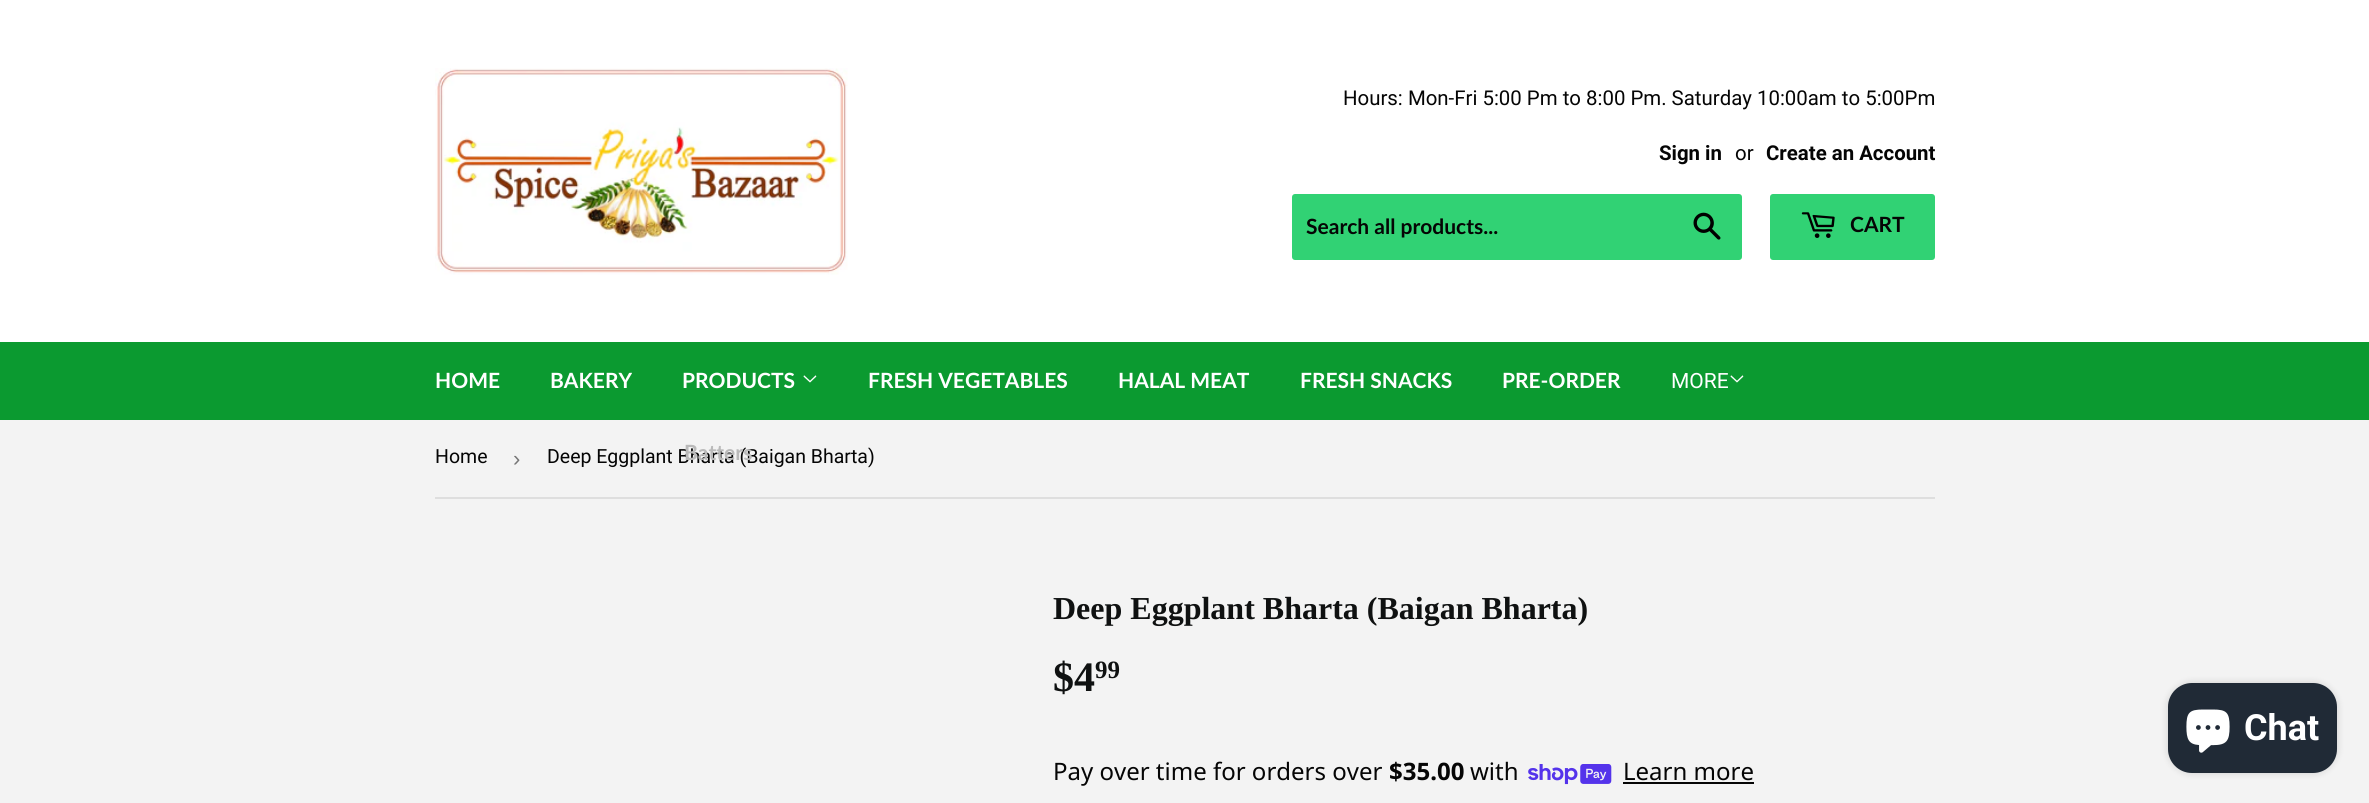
import math
import cairo



def rounded_rect(context, x, y, w, h, r):
    context.new_sub_path()
    for i, (u, v) in enumerate([(x + w - r, y + h - r), (x + r, y + h - r), (x + r, y + r), (x + w - r, y + r)]):
        context.arc(u, v, r, i * math.pi / 2, (i + 1) * math.pi / 2)
    context.close_path()


def draw_shadow(context, x, y, w, h, r, blur, alpha):
    context.push_group_with_content(cairo.Content.ALPHA)
    context.set_operator(cairo.Operator.SOURCE)
    for i in range(15, -16, -2):
        e = blur * i / 6
        if min(w, h) + 2 * e > 0:
            context.set_source_rgba(0, 0, 0, alpha * math.erfc((i - 1) / 8.5) / 2)
            rounded_rect(context, x - e, y - e, w + 2 * e, h + 2 * e, max(0, min(r + e + blur * .6, min(w, h) / 2 + e)))
            context.fill()
    context.mask(context.pop_group())


def draw_image(context, path, x, y, w, h):
    context.save()
    context.set_source_surface(cairo.ImageSurface.create_from_png(path), x, y)
    context.rectangle(x, y, w, h)
    context.fill()
    context.restore()


def draw(context):
    context.set_source_rgb(243 / 255, 243 / 255, 243 / 255)
    context.paint()
    context.set_source_rgb(1, 1, 1)
    context.rectangle(0, 0, 2369, 342)
    context.fill()
    draw_image(context, "images/1.png", 435, 68, 413, 207)
    context.set_source_rgb(49 / 255, 210 / 255, 116 / 255)
    rounded_rect(context, 1292, 194, 450, 66, 3)
    context.fill()
    draw_image(context, "images/2.png", 1693, 212, 28, 28)
    rounded_rect(context, 1770, 194, 165, 66, 3)
    context.fill()
    draw_image(context, "images/3.png", 1801, 212, 34, 26)
    context.set_source_rgb(11 / 255, 154 / 255, 48 / 255)
    context.rectangle(0, 342, 2369, 78)
    context.fill()
    draw_image(context, "images/4.png", 803, 375, 14, 8)
    draw_image(context, "images/4.png", 1730, 375, 14, 8)
    context.set_source_rgb(222 / 255, 222 / 255, 222 / 255)
    context.rectangle(435, 497, 1500, 2)
    context.fill()
    draw_image(context, "images/5.png", 1528, 764, 84, 21)
    context.set_source_rgb(5 / 255, 5 / 255, 5 / 255)
    context.rectangle(1623, 782, 131, 2)
    context.fill()
    context.set_source_rgb(0, 0, 0)
    draw_shadow(context, 2168, 683, 169, 90, 24, 4, 0.15)
    context.set_source_rgb(32 / 255, 42 / 255, 54 / 255)
    rounded_rect(context, 2168, 683, 169, 90, 24)
    context.fill()
    draw_image(context, "images/6.png", 2186, 709, 44, 44)
    context.select_font_face("Roboto")
    context.set_font_size(20.4)
    context.set_source_rgb(5 / 255, 5 / 255, 5 / 255)
    context.move_to(1343, 105)
    context.show_text("Hours: Mon-Fri 5:00 Pm to 8:00 Pm. Saturday 10:00am to 5:00Pm")
    context.select_font_face("Roboto", cairo.FontSlant.NORMAL, cairo.FontWeight.BOLD)
    context.move_to(1659, 160)
    context.show_text("Sign in")
    context.select_font_face("Roboto")
    context.move_to(1735, 160)
    context.show_text("or")
    context.select_font_face("Roboto", cairo.FontSlant.NORMAL, cairo.FontWeight.BOLD)
    context.move_to(1766, 160)
    context.show_text("Create an Account")
    context.select_font_face("Lato", cairo.FontSlant.NORMAL, cairo.FontWeight.BOLD)
    context.set_font_size(21)
    context.move_to(1306, 234)
    context.show_text("Search all products...")
    context.move_to(1850, 232)
    context.show_text("CART")
    context.set_source_rgb(1, 1, 1)
    context.move_to(435, 388)
    context.show_text("HOME")
    context.move_to(550, 388)
    context.show_text("BAKERY")
    context.move_to(682, 388)
    context.show_text("PRODUCTS")
    context.move_to(868, 388)
    context.show_text("FRESH VEGETABLES")
    context.move_to(1118, 388)
    context.show_text("HALAL MEAT")
    context.move_to(1300, 388)
    context.show_text("FRESH SNACKS")
    context.move_to(1502, 388)
    context.show_text("PRE-ORDER")
    context.select_font_face("Roboto")
    context.move_to(1671, 388)
    context.show_text("MORE")
    context.set_font_size(19.5)
    context.set_source_rgb(5 / 255, 5 / 255, 5 / 255)
    context.move_to(435, 463)
    context.show_text("Home")
    context.select_font_face("Liberation Sans")
    context.set_font_size(22)
    context.set_source_rgb(118 / 255, 118 / 255, 118 / 255)
    context.move_to(513, 466)
    context.show_text("›")
    context.select_font_face("Roboto")
    context.set_font_size(19.5)
    context.set_source_rgb(5 / 255, 5 / 255, 5 / 255)
    context.move_to(547, 463)
    context.show_text("Deep Eggplant Bharta (Baigan Bharta)")
    context.select_font_face("Lato", cairo.FontSlant.NORMAL, cairo.FontWeight.BOLD)
    context.set_font_size(21)
    context.set_source_rgb(186 / 255, 186 / 255, 186 / 255)
    context.move_to(684, 460)
    context.show_text("Batters")
    context.select_font_face("Liberation Serif", cairo.FontSlant.NORMAL, cairo.FontWeight.BOLD)
    context.set_font_size(32)
    context.set_source_rgb(15 / 255, 17 / 255, 17 / 255)
    context.move_to(1053, 619)
    context.show_text("Deep Eggplant Bharta (Baigan Bharta)")
    context.set_font_size(42)
    context.move_to(1053, 691)
    context.show_text("$4")
    context.set_font_size(25)
    context.move_to(1095, 678)
    context.show_text("99")
    context.select_font_face("Noto Sans")
    context.set_font_size(24)
    context.set_source_rgb(5 / 255, 5 / 255, 5 / 255)
    context.move_to(1053, 780)
    context.show_text("Pay over time for orders over")
    context.select_font_face("Noto Sans", cairo.FontSlant.NORMAL, cairo.FontWeight.BOLD)
    context.move_to(1389, 780)
    context.show_text("$35.00")
    context.select_font_face("Noto Sans")
    context.move_to(1470, 780)
    context.show_text("with")
    context.move_to(1623, 780)
    context.show_text("Learn more")
    context.select_font_face("Roboto", cairo.FontSlant.NORMAL, cairo.FontWeight.BOLD)
    context.set_font_size(36)
    context.set_source_rgb(1, 1, 1)
    context.move_to(2244, 740)
    context.show_text("Chat")


surface = cairo.ImageSurface(cairo.Format.RGB24, 2369, 803)
context = cairo.Context(surface)
options = cairo.FontOptions()
options.set_hint_metrics(cairo.HintMetrics.OFF)
options.set_hint_style(cairo.HintStyle.NONE)
context.set_font_options(options)
context.set_miter_limit(4)
draw(context)
surface.write_to_png("out.png")
